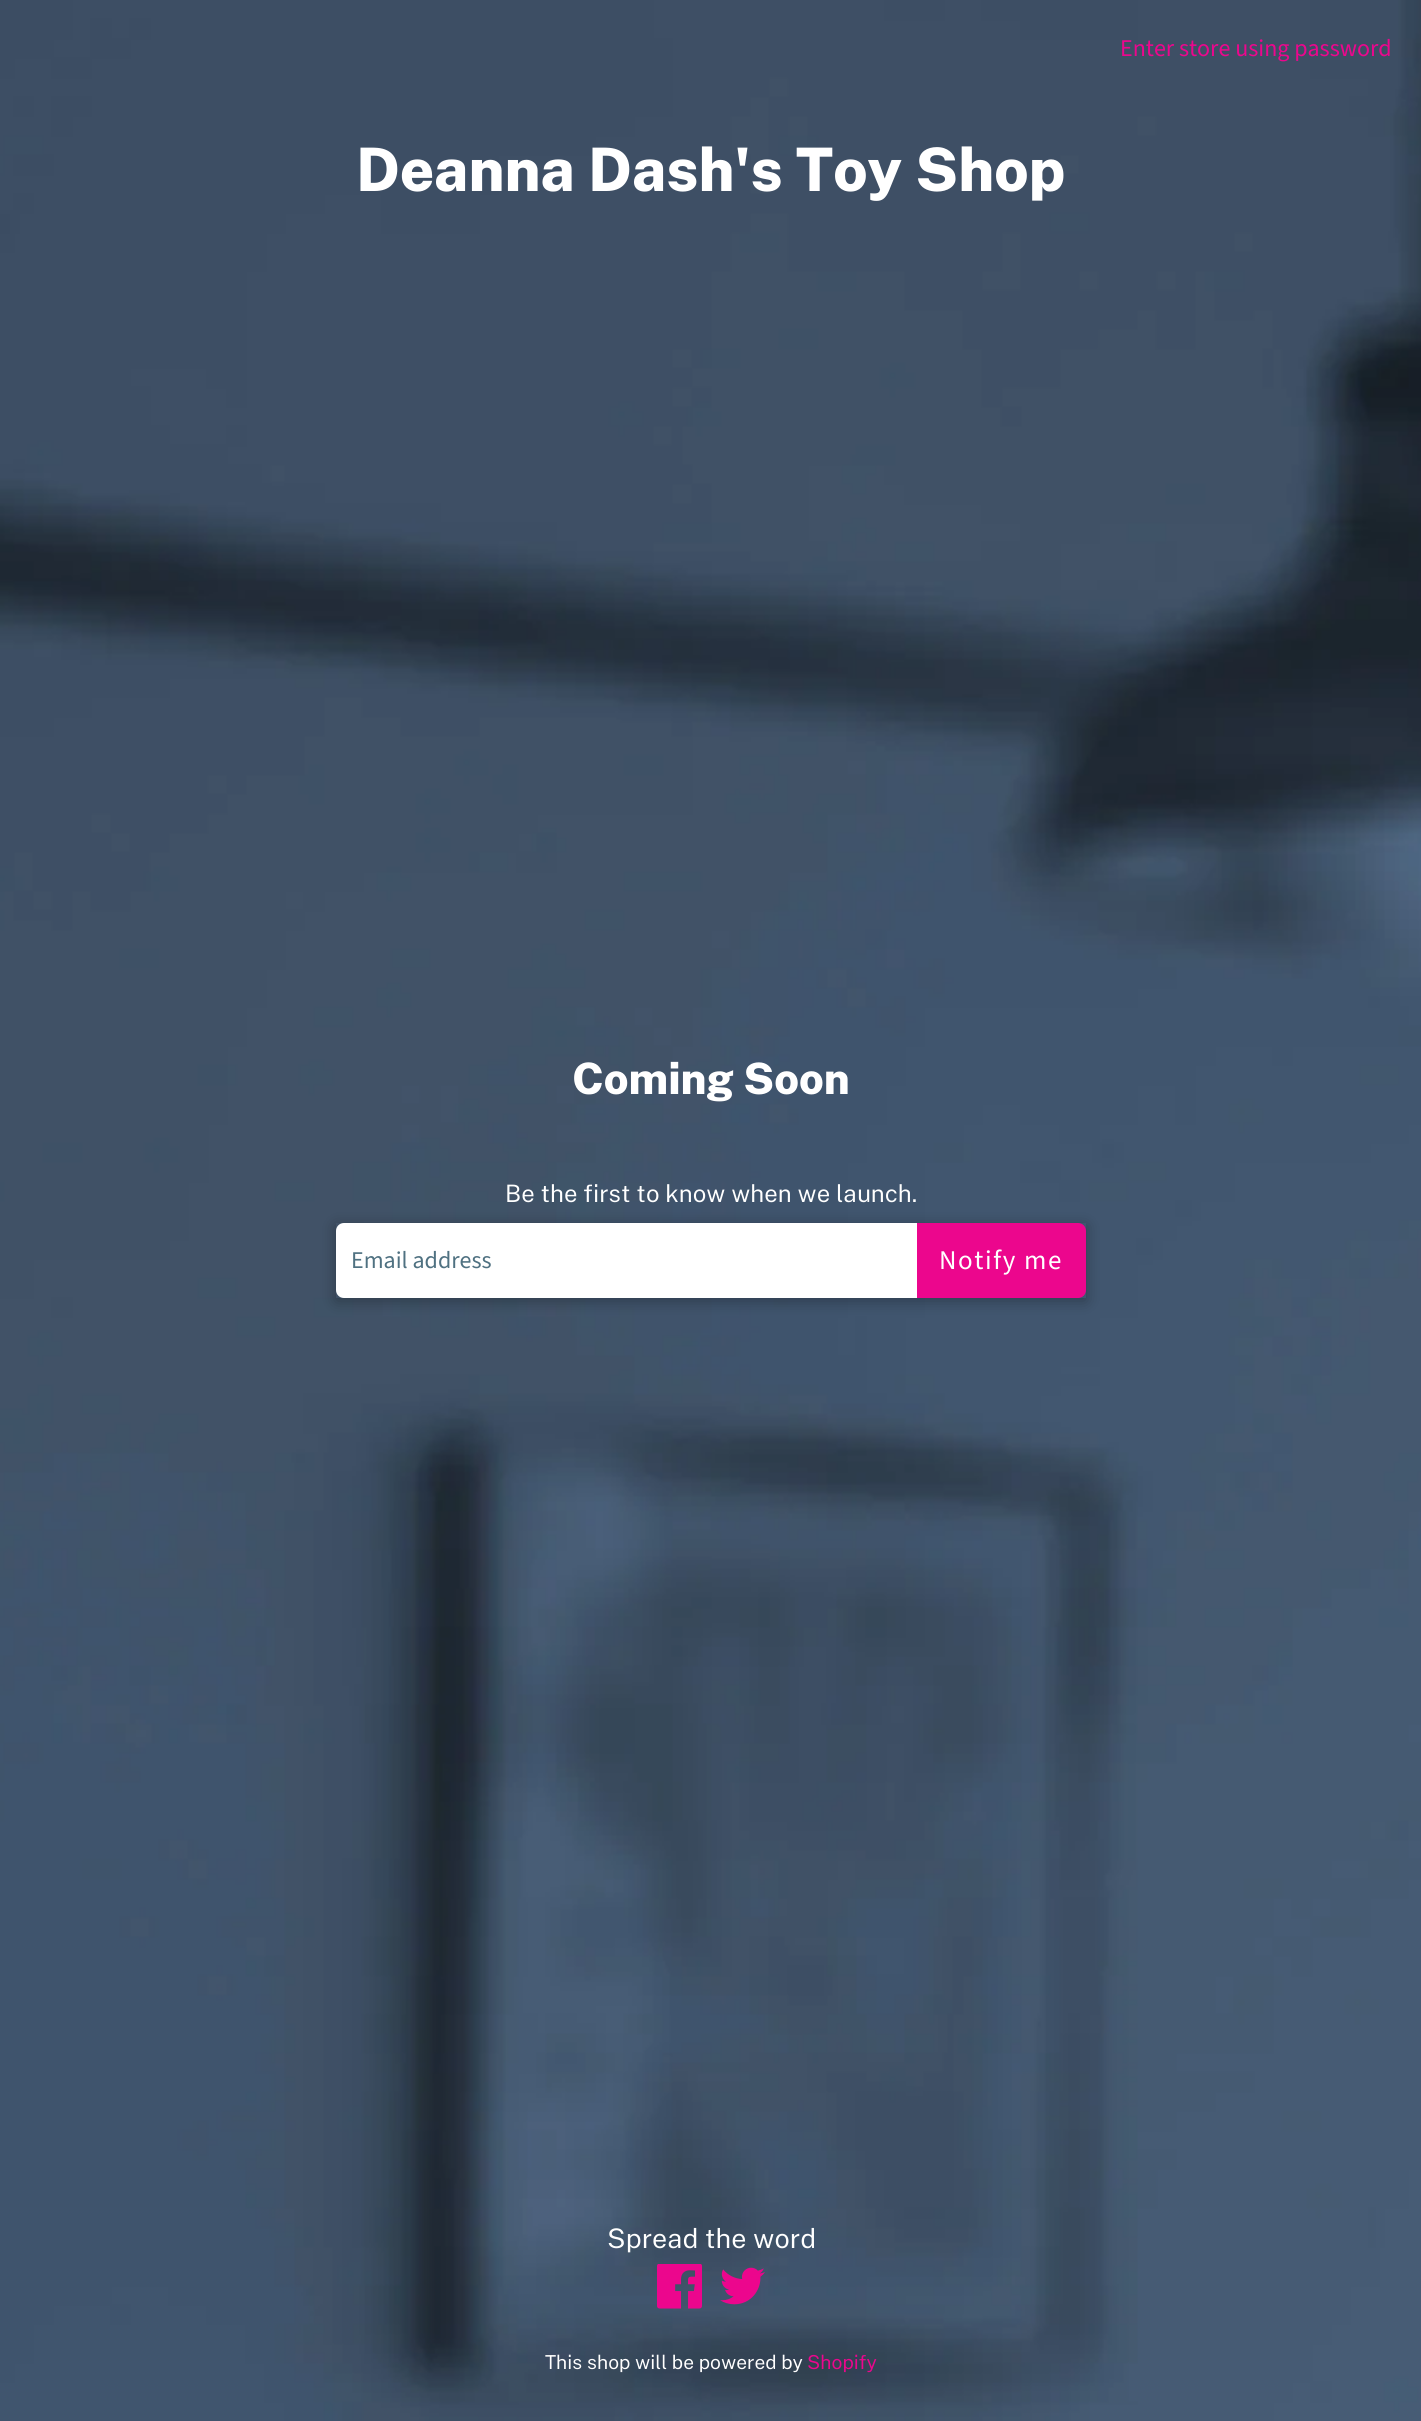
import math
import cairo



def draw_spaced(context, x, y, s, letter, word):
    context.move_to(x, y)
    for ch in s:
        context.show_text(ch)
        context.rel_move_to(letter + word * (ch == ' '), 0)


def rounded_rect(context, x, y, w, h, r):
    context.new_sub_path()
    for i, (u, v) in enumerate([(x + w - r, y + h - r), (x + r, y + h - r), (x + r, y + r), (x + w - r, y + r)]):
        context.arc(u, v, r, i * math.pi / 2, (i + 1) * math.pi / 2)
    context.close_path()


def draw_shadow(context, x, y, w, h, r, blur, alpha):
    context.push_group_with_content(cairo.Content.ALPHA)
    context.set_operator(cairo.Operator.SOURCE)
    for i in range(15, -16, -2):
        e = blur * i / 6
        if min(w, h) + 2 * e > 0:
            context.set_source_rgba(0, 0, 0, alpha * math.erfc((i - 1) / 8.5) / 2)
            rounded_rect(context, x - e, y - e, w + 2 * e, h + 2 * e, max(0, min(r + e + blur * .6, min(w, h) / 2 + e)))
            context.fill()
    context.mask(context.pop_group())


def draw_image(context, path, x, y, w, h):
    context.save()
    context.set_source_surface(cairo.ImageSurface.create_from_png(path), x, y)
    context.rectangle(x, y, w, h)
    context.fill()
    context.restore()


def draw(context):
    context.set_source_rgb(1, 1, 1)
    context.paint()
    draw_image(context, "images/1.png", 0, 0, 1421, 2421)
    context.save()
    context.set_fill_rule(cairo.FillRule.EVEN_ODD)
    context.new_path()
    context.move_to(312, 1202)
    context.line_to(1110, 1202)
    context.line_to(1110, 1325)
    context.line_to(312, 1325)
    context.close_path()
    context.move_to(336, 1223)
    context.line_to(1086, 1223)
    context.line_to(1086, 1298)
    context.line_to(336, 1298)
    context.close_path()
    context.clip()
    context.set_source_rgb(0, 0, 0)
    draw_shadow(context, 336, 1226, 750, 75, 0, 7.5, 0.3)
    context.restore()
    context.set_source_rgb(1, 1, 1)
    context.new_path()
    context.move_to(344, 1223)
    context.line_to(917, 1223)
    context.line_to(917, 1298)
    context.line_to(344, 1298)
    context.curve_to(339.5, 1298, 336, 1294.5, 336, 1290)
    context.line_to(336, 1231)
    context.curve_to(336, 1226.5, 339.5, 1223, 344, 1223)
    context.close_path()
    context.fill()
    context.set_source_rgb(236 / 255, 6 / 255, 141 / 255)
    context.new_path()
    context.move_to(917, 1223)
    context.line_to(1078, 1223)
    context.curve_to(1082.5, 1223, 1086, 1226.5, 1086, 1231)
    context.line_to(1086, 1290)
    context.curve_to(1086, 1294.5, 1082.5, 1298, 1078, 1298)
    context.line_to(917, 1298)
    context.close_path()
    context.fill()
    draw_image(context, "images/2.png", 657, 2264, 45, 45)
    draw_image(context, "images/3.png", 720, 2267, 45, 38)
    context.select_font_face("Source Sans Pro")
    context.set_font_size(24)
    context.move_to(1120, 56)
    context.show_text("Enter store using password")
    context.select_font_face("Public Sans ExtraBold")
    context.set_font_size(60)
    context.set_source_rgb(1, 1, 1)
    context.move_to(356, 191)
    context.show_text("Deanna Dash's Toy Shop")
    context.set_font_size(43.25)
    context.move_to(572, 1094)
    context.show_text("Coming Soon")
    context.select_font_face("Public Sans")
    context.set_font_size(24)
    context.move_to(505, 1202)
    context.show_text("Be the first to know when we launch.")
    context.select_font_face("Source Sans Pro")
    context.set_source_rgb(79 / 255, 113 / 255, 129 / 255)
    context.move_to(351, 1268)
    context.show_text("Email address")
    context.set_font_size(27)
    context.set_source_rgb(1, 1, 1)
    draw_spaced(context, 939, 1269, "Notify me", 1.6, 0)
    context.select_font_face("Public Sans")
    context.move_to(607, 2248)
    context.show_text("Spread the word")
    context.set_font_size(19.25)
    context.move_to(545, 2369)
    context.show_text("This shop will be powered by")
    context.set_source_rgb(236 / 255, 6 / 255, 141 / 255)
    context.move_to(807, 2369)
    context.show_text("Shopify")


surface = cairo.ImageSurface(cairo.Format.RGB24, 1421, 2421)
context = cairo.Context(surface)
options = cairo.FontOptions()
options.set_hint_metrics(cairo.HintMetrics.OFF)
options.set_hint_style(cairo.HintStyle.NONE)
context.set_font_options(options)
context.set_miter_limit(4)
draw(context)
surface.write_to_png("out.png")
